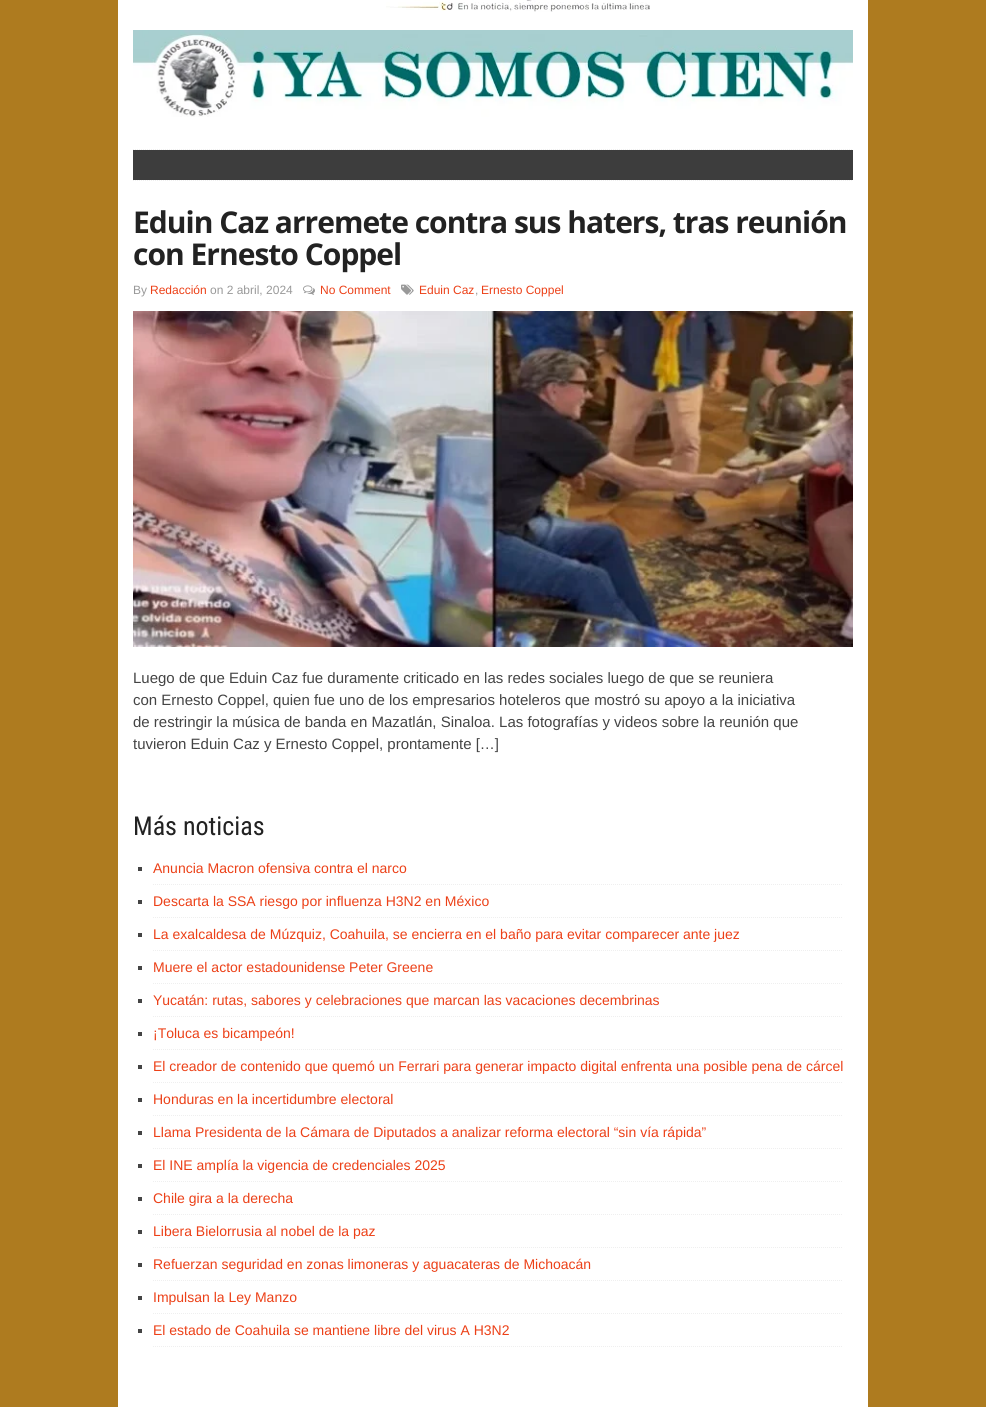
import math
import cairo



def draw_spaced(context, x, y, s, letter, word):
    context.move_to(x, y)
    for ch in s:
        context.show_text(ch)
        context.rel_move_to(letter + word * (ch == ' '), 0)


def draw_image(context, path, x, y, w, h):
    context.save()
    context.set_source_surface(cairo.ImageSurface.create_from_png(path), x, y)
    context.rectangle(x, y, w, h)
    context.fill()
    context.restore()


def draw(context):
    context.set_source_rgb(174 / 255, 123 / 255, 31 / 255)
    context.paint()
    context.set_source_rgb(1, 1, 1)
    context.rectangle(118, 0, 750, 1407)
    context.fill()
    draw_image(context, "images/1.png", 386, 0, 264, 12)
    draw_image(context, "images/2.png", 133, 30, 720, 87)
    context.new_path()
    context.move_to(133, 149.5)
    context.line_to(853, 149.5)
    context.set_source_rgb(239 / 255, 239 / 255, 239 / 255)
    context.set_line_width(1)
    context.set_dash([1, 1])
    context.stroke()
    context.new_path()
    context.move_to(133, 180.5)
    context.line_to(853, 180.5)
    context.stroke()
    context.set_source_rgb(61 / 255, 61 / 255, 61 / 255)
    context.rectangle(133, 150, 720, 30)
    context.fill()
    draw_image(context, "images/3.png", 303, 285, 12, 10)
    draw_image(context, "images/4.png", 401, 284, 13, 11)
    draw_image(context, "images/5.png", 133, 311, 720, 336)
    context.new_path()
    context.move_to(153, 884.5)
    context.line_to(843, 884.5)
    context.set_source_rgb(239 / 255, 239 / 255, 239 / 255)
    context.stroke()
    context.set_source_rgb(68 / 255, 68 / 255, 68 / 255)
    context.rectangle(138, 867, 4, 4)
    context.fill()
    context.new_path()
    context.move_to(153, 917.5)
    context.line_to(843, 917.5)
    context.set_source_rgb(239 / 255, 239 / 255, 239 / 255)
    context.stroke()
    context.set_source_rgb(68 / 255, 68 / 255, 68 / 255)
    context.rectangle(138, 900, 4, 4)
    context.fill()
    context.new_path()
    context.move_to(153, 950.5)
    context.line_to(843, 950.5)
    context.set_source_rgb(239 / 255, 239 / 255, 239 / 255)
    context.stroke()
    context.set_source_rgb(68 / 255, 68 / 255, 68 / 255)
    context.rectangle(138, 933, 4, 4)
    context.fill()
    context.new_path()
    context.move_to(153, 983.5)
    context.line_to(843, 983.5)
    context.set_source_rgb(239 / 255, 239 / 255, 239 / 255)
    context.stroke()
    context.set_source_rgb(68 / 255, 68 / 255, 68 / 255)
    context.rectangle(138, 966, 4, 4)
    context.fill()
    context.new_path()
    context.move_to(153, 1016.5)
    context.line_to(843, 1016.5)
    context.set_source_rgb(239 / 255, 239 / 255, 239 / 255)
    context.stroke()
    context.set_source_rgb(68 / 255, 68 / 255, 68 / 255)
    context.rectangle(138, 999, 4, 4)
    context.fill()
    context.new_path()
    context.move_to(153, 1049.5)
    context.line_to(843, 1049.5)
    context.set_source_rgb(239 / 255, 239 / 255, 239 / 255)
    context.stroke()
    context.set_source_rgb(68 / 255, 68 / 255, 68 / 255)
    context.rectangle(138, 1032, 4, 4)
    context.fill()
    context.new_path()
    context.move_to(153, 1082.5)
    context.line_to(843, 1082.5)
    context.set_source_rgb(239 / 255, 239 / 255, 239 / 255)
    context.stroke()
    context.set_source_rgb(68 / 255, 68 / 255, 68 / 255)
    context.rectangle(138, 1065, 4, 4)
    context.fill()
    context.new_path()
    context.move_to(153, 1115.5)
    context.line_to(843, 1115.5)
    context.set_source_rgb(239 / 255, 239 / 255, 239 / 255)
    context.stroke()
    context.set_source_rgb(68 / 255, 68 / 255, 68 / 255)
    context.rectangle(138, 1098, 4, 4)
    context.fill()
    context.new_path()
    context.move_to(153, 1148.5)
    context.line_to(843, 1148.5)
    context.set_source_rgb(239 / 255, 239 / 255, 239 / 255)
    context.stroke()
    context.set_source_rgb(68 / 255, 68 / 255, 68 / 255)
    context.rectangle(138, 1131, 4, 4)
    context.fill()
    context.new_path()
    context.move_to(153, 1181.5)
    context.line_to(843, 1181.5)
    context.set_source_rgb(239 / 255, 239 / 255, 239 / 255)
    context.stroke()
    context.set_source_rgb(68 / 255, 68 / 255, 68 / 255)
    context.rectangle(138, 1164, 4, 4)
    context.fill()
    context.new_path()
    context.move_to(153, 1214.5)
    context.line_to(843, 1214.5)
    context.set_source_rgb(239 / 255, 239 / 255, 239 / 255)
    context.stroke()
    context.set_source_rgb(68 / 255, 68 / 255, 68 / 255)
    context.rectangle(138, 1197, 4, 4)
    context.fill()
    context.new_path()
    context.move_to(153, 1247.5)
    context.line_to(843, 1247.5)
    context.set_source_rgb(239 / 255, 239 / 255, 239 / 255)
    context.stroke()
    context.set_source_rgb(68 / 255, 68 / 255, 68 / 255)
    context.rectangle(138, 1230, 4, 4)
    context.fill()
    context.new_path()
    context.move_to(153, 1280.5)
    context.line_to(843, 1280.5)
    context.set_source_rgb(239 / 255, 239 / 255, 239 / 255)
    context.stroke()
    context.set_source_rgb(68 / 255, 68 / 255, 68 / 255)
    context.rectangle(138, 1263, 4, 4)
    context.fill()
    context.new_path()
    context.move_to(153, 1313.5)
    context.line_to(843, 1313.5)
    context.set_source_rgb(239 / 255, 239 / 255, 239 / 255)
    context.stroke()
    context.set_source_rgb(68 / 255, 68 / 255, 68 / 255)
    context.rectangle(138, 1296, 4, 4)
    context.fill()
    context.new_path()
    context.move_to(153, 1346.5)
    context.line_to(843, 1346.5)
    context.set_source_rgb(239 / 255, 239 / 255, 239 / 255)
    context.stroke()
    context.set_source_rgb(68 / 255, 68 / 255, 68 / 255)
    context.rectangle(138, 1329, 4, 4)
    context.fill()
    context.select_font_face("Open Sans", cairo.FontSlant.NORMAL, cairo.FontWeight.BOLD)
    context.set_font_size(30)
    context.set_source_rgb(34 / 255, 34 / 255, 34 / 255)
    draw_spaced(context, 133, 233, "Eduin Caz arremete contra sus haters, tras reunión", -1, 0)
    draw_spaced(context, 133, 265, "con Ernesto Coppel", -1, 0)
    context.select_font_face("Liberation Sans")
    context.set_font_size(12)
    context.set_source_rgb(153 / 255, 153 / 255, 153 / 255)
    context.move_to(133, 294)
    context.show_text("By")
    context.set_source_rgb(236 / 255, 64 / 255, 23 / 255)
    context.move_to(150, 294)
    context.show_text("Redacción")
    context.set_source_rgb(153 / 255, 153 / 255, 153 / 255)
    context.move_to(210, 294)
    context.show_text("on 2 abril, 2024")
    context.set_source_rgb(236 / 255, 64 / 255, 23 / 255)
    context.move_to(320, 294)
    context.show_text("No Comment")
    context.move_to(419, 294)
    context.show_text("Eduin Caz")
    context.set_source_rgb(153 / 255, 153 / 255, 153 / 255)
    context.move_to(475, 294)
    context.show_text(",")
    context.set_source_rgb(236 / 255, 64 / 255, 23 / 255)
    context.move_to(481, 294)
    context.show_text("Ernesto Coppel")
    context.set_font_size(15)
    context.set_source_rgb(68 / 255, 68 / 255, 68 / 255)
    context.move_to(133, 683)
    context.show_text("Luego de que Eduin Caz fue duramente criticado en las redes sociales luego de que se reuniera")
    context.move_to(133, 705)
    context.show_text("con Ernesto Coppel, quien fue uno de los empresarios hoteleros que mostró su apoyo a la iniciativa")
    context.move_to(133, 727)
    context.show_text("de restringir la música de banda en Mazatlán, Sinaloa. Las fotografías y videos sobre la reunión que")
    context.move_to(133, 749)
    context.show_text("tuvieron Eduin Caz y Ernesto Coppel, prontamente […]")
    context.select_font_face("Roboto Condensed")
    context.set_font_size(26)
    context.set_source_rgb(34 / 255, 34 / 255, 34 / 255)
    context.move_to(133, 835)
    context.show_text("Más noticias")
    context.select_font_face("Liberation Sans")
    context.set_font_size(14)
    context.set_source_rgb(236 / 255, 64 / 255, 23 / 255)
    context.move_to(153, 873)
    context.show_text("Anuncia Macron ofensiva contra el narco")
    context.move_to(153, 906)
    context.show_text("Descarta la SSA riesgo por influenza H3N2 en México")
    context.move_to(153, 939)
    context.show_text("La exalcaldesa de Múzquiz, Coahuila, se encierra en el baño para evitar comparecer ante juez")
    context.move_to(153, 972)
    context.show_text("Muere el actor estadounidense Peter Greene")
    context.move_to(153, 1005)
    context.show_text("Yucatán: rutas, sabores y celebraciones que marcan las vacaciones decembrinas")
    context.move_to(153, 1038)
    context.show_text("¡Toluca es bicampeón!")
    context.move_to(153, 1071)
    context.show_text("El creador de contenido que quemó un Ferrari para generar impacto digital enfrenta una posible pena de cárcel")
    context.move_to(153, 1104)
    context.show_text("Honduras en la incertidumbre electoral")
    context.move_to(153, 1137)
    context.show_text("Llama Presidenta de la Cámara de Diputados a analizar reforma electoral “sin vía rápida”")
    context.move_to(153, 1170)
    context.show_text("El INE amplía la vigencia de credenciales 2025")
    context.move_to(153, 1203)
    context.show_text("Chile gira a la derecha")
    context.move_to(153, 1236)
    context.show_text("Libera Bielorrusia al nobel de la paz")
    context.move_to(153, 1269)
    context.show_text("Refuerzan seguridad en zonas limoneras y aguacateras de Michoacán")
    context.move_to(153, 1302)
    context.show_text("Impulsan la Ley Manzo")
    context.move_to(153, 1335)
    context.show_text("El estado de Coahuila se mantiene libre del virus A H3N2")


surface = cairo.ImageSurface(cairo.Format.RGB24, 986, 1407)
context = cairo.Context(surface)
options = cairo.FontOptions()
options.set_hint_metrics(cairo.HintMetrics.OFF)
options.set_hint_style(cairo.HintStyle.NONE)
context.set_font_options(options)
context.set_miter_limit(4)
draw(context)
surface.write_to_png("out.png")
